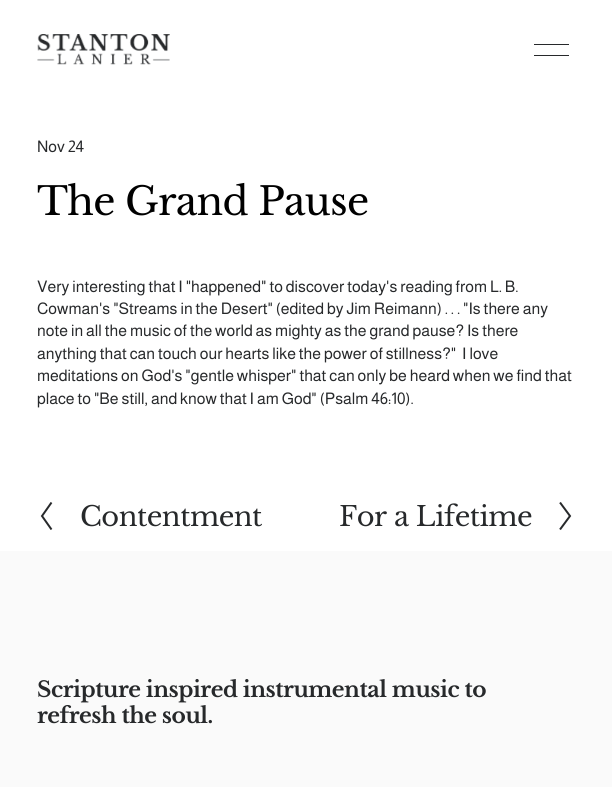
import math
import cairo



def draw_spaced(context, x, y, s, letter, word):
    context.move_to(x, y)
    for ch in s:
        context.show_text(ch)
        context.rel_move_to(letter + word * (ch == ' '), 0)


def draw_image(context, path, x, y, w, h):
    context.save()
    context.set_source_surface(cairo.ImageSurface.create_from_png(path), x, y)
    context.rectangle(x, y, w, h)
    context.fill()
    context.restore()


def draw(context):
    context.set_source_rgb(1, 1, 1)
    context.paint()
    draw_image(context, "images/1.png", 37, 34, 133, 31)
    context.set_source_rgb(39 / 255, 41 / 255, 43 / 255)
    context.rectangle(534, 44, 35, 1)
    context.fill()
    context.rectangle(534, 55, 35, 1)
    context.fill()
    context.new_path()
    context.move_to(51.5, 529.5)
    context.line_to(42, 516)
    context.line_to(51.5, 502.5)
    context.stroke()
    context.new_path()
    context.move_to(560, 502.5)
    context.line_to(570, 516)
    context.line_to(560, 529.5)
    context.stroke()
    context.set_source_rgb(250 / 255, 250 / 255, 250 / 255)
    context.rectangle(0, 551, 612, 236)
    context.fill()
    context.select_font_face("Almarai")
    context.set_font_size(16)
    context.set_source_rgb(39 / 255, 41 / 255, 43 / 255)
    context.move_to(37, 152)
    context.show_text("Nov 24")
    context.select_font_face("Libre Baskerville")
    context.set_font_size(38.75)
    context.set_source_rgb(0, 0, 0)
    draw_spaced(context, 37, 215, "The Grand Pause", -0.75, 0)
    context.select_font_face("Almarai")
    context.set_font_size(16)
    context.set_source_rgb(39 / 255, 41 / 255, 43 / 255)
    context.move_to(37, 292)
    context.show_text("Very interesting that I \"happened\" to discover today's reading from L. B.")
    context.move_to(37, 314)
    context.show_text("Cowman's \"Streams in the Desert\" (edited by Jim Reimann) . . . \"Is there any")
    context.move_to(37, 336)
    context.show_text("note in all the music of the world as mighty as the grand pause? Is there")
    context.move_to(37, 359)
    context.show_text("anything that can touch our hearts like the power of stillness?\"  I love")
    context.move_to(37, 381)
    context.show_text("meditations on God's \"gentle whisper\" that can only be heard when we find that")
    context.move_to(37, 404)
    context.show_text("place to \"Be still, and know that I am God\" (Psalm 46:10).")
    context.select_font_face("Libre Baskerville")
    context.set_font_size(27.25)
    draw_spaced(context, 80, 526, "Contentment", -0.5, 0)
    draw_spaced(context, 339, 526, "For a Lifetime", -0.5, 0)
    context.select_font_face("Libre Baskerville", cairo.FontSlant.NORMAL, cairo.FontWeight.BOLD)
    context.set_font_size(21.7)
    draw_spaced(context, 37, 697, "Scripture inspired instrumental music to", -0.45, 0)
    draw_spaced(context, 37, 723, "refresh the soul.", -0.45, 0)


surface = cairo.ImageSurface(cairo.Format.RGB24, 612, 787)
context = cairo.Context(surface)
options = cairo.FontOptions()
options.set_hint_metrics(cairo.HintMetrics.OFF)
options.set_hint_style(cairo.HintStyle.NONE)
context.set_font_options(options)
context.set_miter_limit(4)
draw(context)
surface.write_to_png("out.png")
